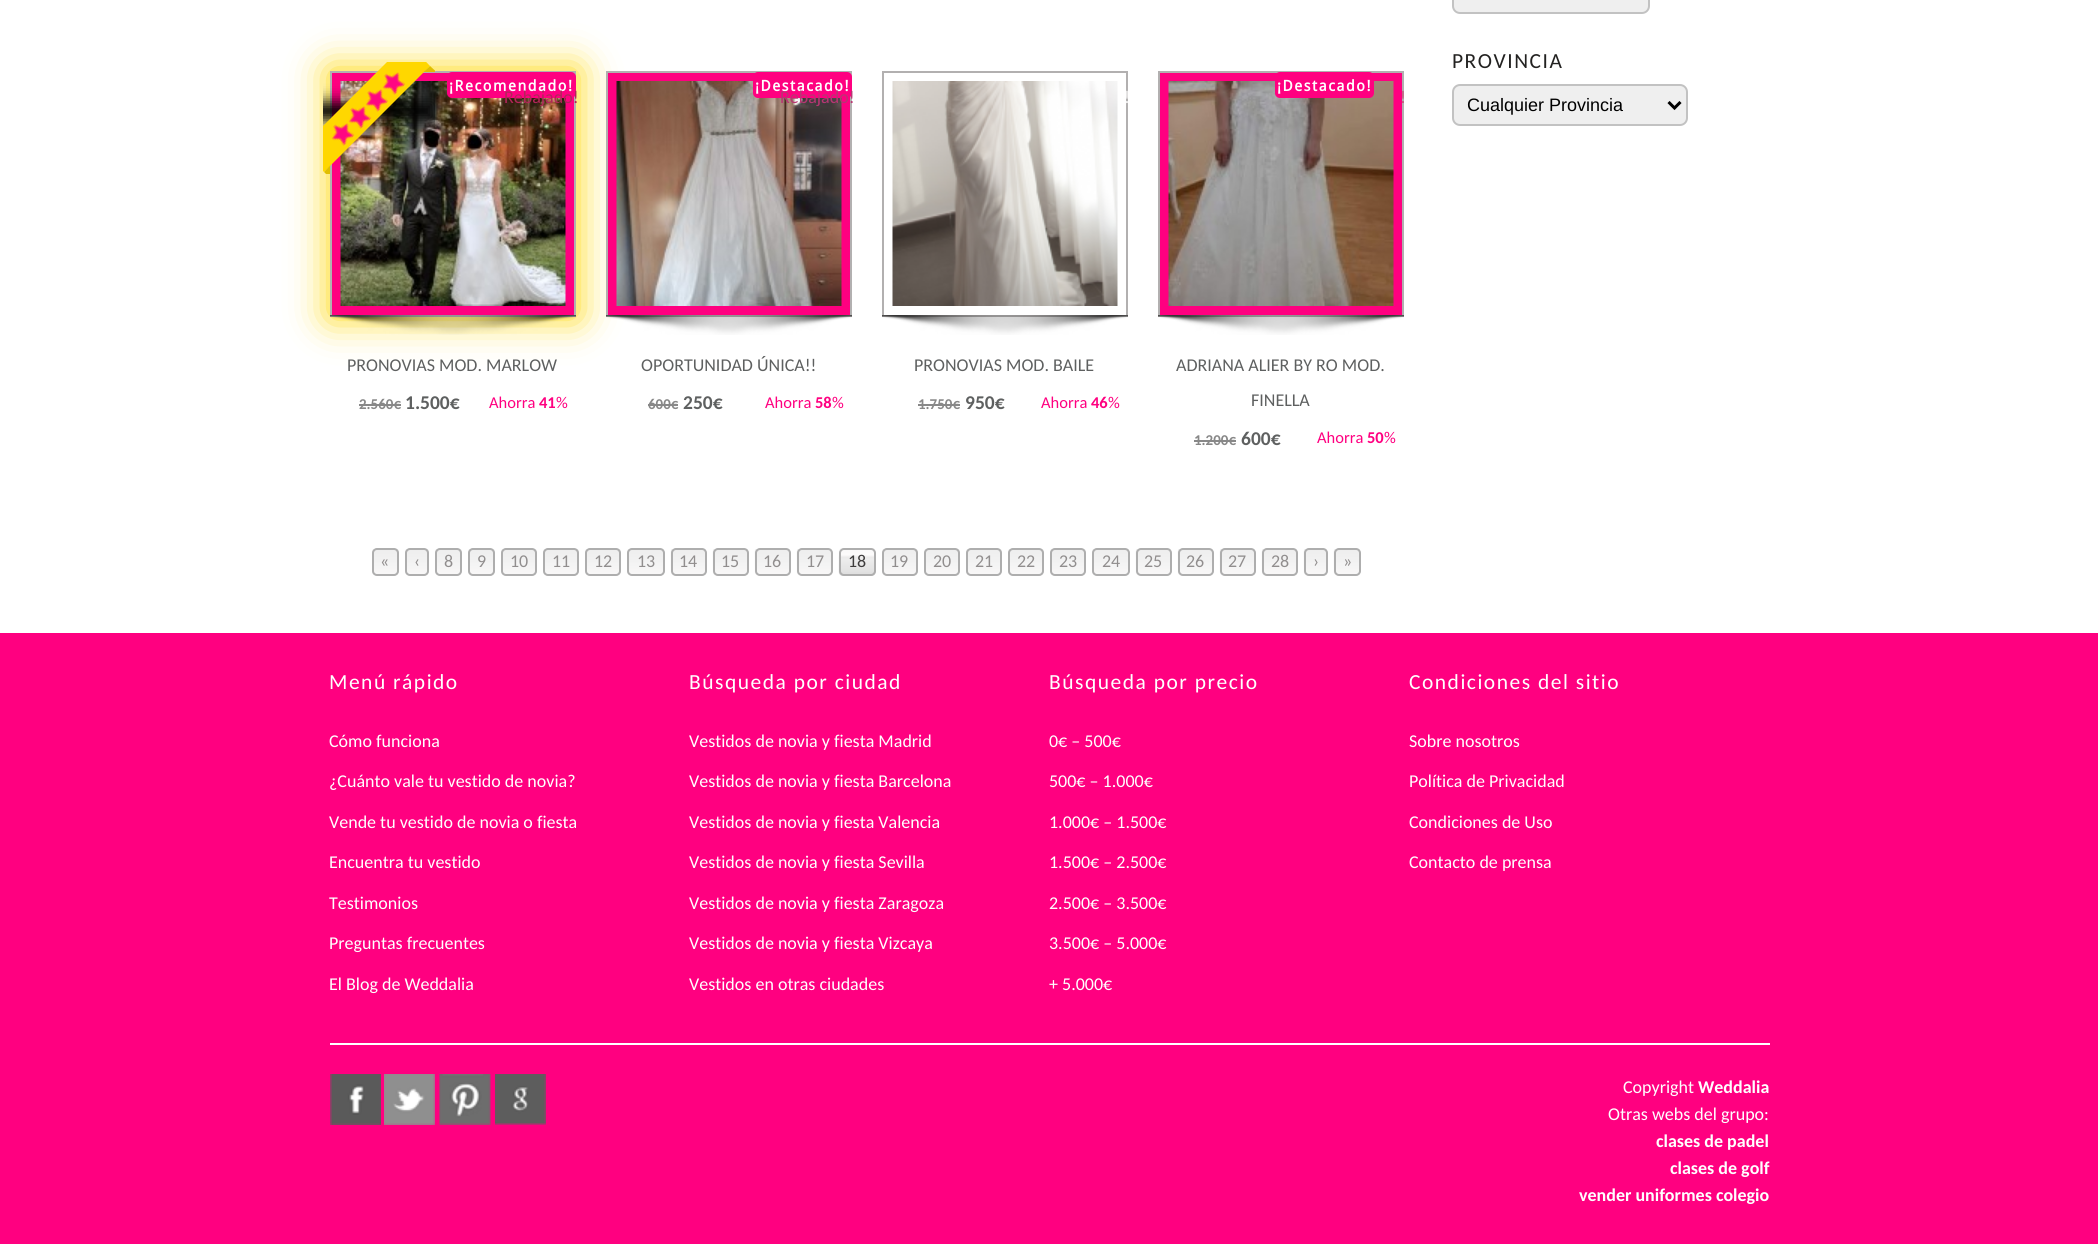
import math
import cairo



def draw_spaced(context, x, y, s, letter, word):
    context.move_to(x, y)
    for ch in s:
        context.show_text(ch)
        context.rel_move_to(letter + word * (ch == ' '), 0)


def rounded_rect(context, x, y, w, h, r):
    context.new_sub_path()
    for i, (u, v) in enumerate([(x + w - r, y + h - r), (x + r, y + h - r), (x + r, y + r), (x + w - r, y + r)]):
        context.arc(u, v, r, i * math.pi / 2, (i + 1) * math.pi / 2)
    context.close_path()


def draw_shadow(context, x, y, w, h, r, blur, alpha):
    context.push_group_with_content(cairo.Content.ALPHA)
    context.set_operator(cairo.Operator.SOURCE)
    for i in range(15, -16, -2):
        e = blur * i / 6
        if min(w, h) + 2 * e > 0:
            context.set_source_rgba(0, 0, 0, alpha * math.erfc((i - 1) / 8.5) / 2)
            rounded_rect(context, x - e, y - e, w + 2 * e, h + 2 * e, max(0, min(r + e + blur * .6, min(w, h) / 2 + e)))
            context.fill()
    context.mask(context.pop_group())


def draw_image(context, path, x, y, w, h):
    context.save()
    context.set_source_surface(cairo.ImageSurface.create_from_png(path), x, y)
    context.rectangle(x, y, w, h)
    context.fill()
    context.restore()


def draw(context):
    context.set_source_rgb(1, 1, 1)
    context.paint()
    context.set_source_rgb(1, 215 / 255, 0)
    draw_shadow(context, 329, 69, 249, 249, 0, 19, 1)
    context.set_source_rgb(1, 0, 128 / 255)
    context.rectangle(331, 72, 244, 244)
    context.fill_preserve()
    context.set_source_rgb(178 / 255, 176 / 255, 176 / 255)
    context.stroke()
    draw_image(context, "images/5.png", 340, 81, 226, 225)
    context.save()
    context.rectangle(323, 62, 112, 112)
    context.clip()
    context.set_source_rgb(0, 0, 0)
    draw_shadow(context, 299, 102, 135, 18, 0, 7.5, 1)
    context.restore()
    context.save()
    context.rectangle(323, 62, 112, 112)
    context.clip()
    context.set_source_rgb(1, 215 / 255, 0)
    context.new_path()
    context.move_to(301, 148)
    context.line_to(407, 42)
    context.line_to(430, 66)
    context.line_to(324, 172)
    context.close_path()
    context.fill()
    context.restore()
    context.set_source_rgb(224 / 255, 190 / 255, 0)
    context.new_path()
    context.move_to(423.5, 72)
    context.line_to(430, 66)
    context.line_to(430, 72)
    context.close_path()
    context.fill()
    context.save()
    context.rectangle(323, 62, 112, 112)
    context.clip()
    context.new_path()
    context.move_to(430, 66)
    context.line_to(436.5, 72)
    context.line_to(430, 72)
    context.close_path()
    context.fill()
    context.restore()
    draw_image(context, "images/4.png", 331, 123, 24, 23)
    draw_image(context, "images/3.png", 348, 106, 24, 23)
    draw_image(context, "images/2.png", 365, 89, 23, 23)
    draw_image(context, "images/1.png", 382, 72, 23, 23)
    context.new_path()
    context.move_to(324, 172)
    context.line_to(330, 165.5)
    context.line_to(330, 172)
    context.close_path()
    context.fill()
    context.save()
    context.rectangle(323, 62, 112, 112)
    context.clip()
    context.new_path()
    context.move_to(330, 178)
    context.line_to(324, 172)
    context.line_to(330, 172)
    context.close_path()
    context.fill()
    context.restore()
    context.set_source_rgb(1, 0, 128 / 255)
    rounded_rect(context, 447, 72, 129, 26, 5)
    context.fill()
    draw_image(context, "images/6.png", 330, 315, 246, 20)
    context.set_source_rgb(136 / 255, 136 / 255, 136 / 255)
    context.rectangle(359, 404, 42, 2)
    context.fill()
    context.set_source_rgb(1, 0, 128 / 255)
    context.rectangle(607, 72, 244, 244)
    context.fill_preserve()
    context.set_source_rgb(178 / 255, 176 / 255, 176 / 255)
    context.stroke()
    draw_image(context, "images/7.png", 616, 81, 226, 225)
    context.set_source_rgb(1, 0, 128 / 255)
    rounded_rect(context, 753, 72, 99, 26, 5)
    context.fill()
    draw_image(context, "images/8.png", 606, 315, 246, 20)
    context.set_source_rgb(136 / 255, 136 / 255, 136 / 255)
    context.rectangle(648, 404, 30, 2)
    context.fill()
    context.rectangle(883, 72, 244, 244)
    context.set_source_rgb(178 / 255, 176 / 255, 176 / 255)
    context.stroke()
    draw_image(context, "images/9.png", 892, 81, 226, 225)
    draw_image(context, "images/10.png", 882, 315, 246, 20)
    context.set_source_rgb(136 / 255, 136 / 255, 136 / 255)
    context.rectangle(918, 404, 42, 2)
    context.fill()
    context.set_source_rgb(1, 0, 128 / 255)
    context.rectangle(1159, 72, 244, 244)
    context.fill_preserve()
    context.set_source_rgb(178 / 255, 176 / 255, 176 / 255)
    context.stroke()
    draw_image(context, "images/11.png", 1168, 81, 226, 225)
    context.set_source_rgb(1, 0, 128 / 255)
    rounded_rect(context, 1275, 72, 99, 26, 5)
    context.fill()
    draw_image(context, "images/12.png", 1158, 315, 246, 20)
    context.set_source_rgb(136 / 255, 136 / 255, 136 / 255)
    context.rectangle(1194, 440, 42, 2)
    context.fill()
    draw_image(context, "images/13.png", 372, 549, 27, 27)
    rounded_rect(context, 373, 549, 25, 26, 4)
    context.set_source_rgb(174 / 255, 174 / 255, 174 / 255)
    context.stroke()
    draw_image(context, "images/14.png", 405, 549, 24, 27)
    rounded_rect(context, 406, 549, 22, 26, 4)
    context.stroke()
    draw_image(context, "images/13.png", 435, 549, 27, 27)
    rounded_rect(context, 436, 549, 25, 26, 4)
    context.stroke()
    draw_image(context, "images/13.png", 468, 549, 27, 27)
    rounded_rect(context, 469, 549, 25, 26, 4)
    context.stroke()
    draw_image(context, "images/15.png", 501, 549, 36, 27)
    rounded_rect(context, 502, 549, 34, 26, 4)
    context.stroke()
    draw_image(context, "images/15.png", 543, 549, 36, 27)
    rounded_rect(context, 544, 549, 34, 26, 4)
    context.stroke()
    draw_image(context, "images/15.png", 585, 549, 36, 27)
    rounded_rect(context, 586, 549, 34, 26, 4)
    context.stroke()
    draw_image(context, "images/16.png", 627, 549, 38, 27)
    rounded_rect(context, 628, 549, 36, 26, 4)
    context.stroke()
    draw_image(context, "images/17.png", 670, 549, 37, 27)
    rounded_rect(context, 672, 549, 34, 26, 4)
    context.stroke()
    draw_image(context, "images/17.png", 712, 549, 37, 27)
    rounded_rect(context, 714, 549, 34, 26, 4)
    context.stroke()
    draw_image(context, "images/17.png", 754, 549, 37, 27)
    rounded_rect(context, 756, 549, 34, 26, 4)
    context.stroke()
    draw_image(context, "images/17.png", 796, 549, 37, 27)
    rounded_rect(context, 798, 549, 34, 26, 4)
    context.stroke()
    draw_image(context, "images/18.png", 838, 548, 38, 28)
    rounded_rect(context, 840, 549, 35, 26, 4)
    context.stroke()
    draw_image(context, "images/15.png", 882, 549, 36, 27)
    rounded_rect(context, 883, 549, 34, 26, 4)
    context.stroke()
    draw_image(context, "images/15.png", 924, 549, 36, 27)
    rounded_rect(context, 925, 549, 34, 26, 4)
    context.stroke()
    draw_image(context, "images/15.png", 966, 549, 36, 27)
    rounded_rect(context, 967, 549, 34, 26, 4)
    context.stroke()
    draw_image(context, "images/15.png", 1008, 549, 36, 27)
    rounded_rect(context, 1009, 549, 34, 26, 4)
    context.stroke()
    draw_image(context, "images/15.png", 1050, 549, 36, 27)
    rounded_rect(context, 1051, 549, 34, 26, 4)
    context.stroke()
    draw_image(context, "images/16.png", 1092, 549, 38, 27)
    rounded_rect(context, 1093, 549, 36, 26, 4)
    context.stroke()
    draw_image(context, "images/17.png", 1135, 549, 37, 27)
    rounded_rect(context, 1137, 549, 34, 26, 4)
    context.stroke()
    draw_image(context, "images/17.png", 1177, 549, 37, 27)
    rounded_rect(context, 1179, 549, 34, 26, 4)
    context.stroke()
    draw_image(context, "images/17.png", 1219, 549, 37, 27)
    rounded_rect(context, 1221, 549, 34, 26, 4)
    context.stroke()
    draw_image(context, "images/17.png", 1261, 549, 37, 27)
    rounded_rect(context, 1263, 549, 34, 26, 4)
    context.stroke()
    draw_image(context, "images/19.png", 1303, 549, 25, 27)
    rounded_rect(context, 1305, 549, 22, 26, 4)
    context.stroke()
    draw_image(context, "images/20.png", 1333, 549, 28, 27)
    rounded_rect(context, 1335, 549, 25, 26, 4)
    context.stroke()
    context.set_source_rgb(239 / 255, 239 / 255, 239 / 255)
    rounded_rect(context, 1453, -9, 196, 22, 7)
    context.fill_preserve()
    context.set_source_rgb(194 / 255, 194 / 255, 194 / 255)
    context.stroke()
    context.set_source_rgb(239 / 255, 239 / 255, 239 / 255)
    rounded_rect(context, 1453, 85, 234, 40, 7)
    context.fill_preserve()
    context.set_source_rgb(194 / 255, 194 / 255, 194 / 255)
    context.stroke()
    context.new_path()
    context.move_to(1668.5, 102)
    context.line_to(1674.5, 108)
    context.line_to(1680.5, 102)
    context.set_source_rgb(0, 0, 0)
    context.set_line_width(3)
    context.stroke()
    context.set_source_rgb(1, 0, 128 / 255)
    context.rectangle(0, 633, 2098, 611)
    context.fill()
    context.set_source_rgb(1, 1, 1)
    context.rectangle(330, 1043, 1440, 2)
    context.fill()
    draw_image(context, "images/21.png", 330, 1074, 51, 51)
    draw_image(context, "images/22.png", 384, 1074, 51, 51)
    draw_image(context, "images/23.png", 439, 1074, 52, 51)
    draw_image(context, "images/24.png", 495, 1074, 51, 51)
    context.select_font_face("Droid Sans", cairo.FontSlant.NORMAL, cairo.FontWeight.BOLD)
    context.set_font_size(15)
    draw_spaced(context, 449, 91, "¡Recomendado!", 1.5, 0)
    context.select_font_face("Carlito")
    context.set_font_size(18)
    context.set_source_rgb(178 / 255, 37 / 255, 89 / 255)
    context.move_to(504, 103)
    context.show_text("Rebajado!")
    context.set_source_rgb(94 / 255, 96 / 255, 96 / 255)
    context.move_to(347, 371)
    context.show_text("PRONOVIAS MOD. MARLOW")
    context.select_font_face("Carlito", cairo.FontSlant.NORMAL, cairo.FontWeight.BOLD)
    context.set_font_size(15)
    context.set_source_rgb(136 / 255, 136 / 255, 136 / 255)
    context.move_to(359, 409)
    context.show_text("2.560€")
    context.set_font_size(19.5)
    context.set_source_rgb(94 / 255, 96 / 255, 96 / 255)
    context.move_to(405, 409)
    context.show_text("1.500€")
    context.select_font_face("Carlito")
    context.set_font_size(16.5)
    context.set_source_rgb(1, 0, 128 / 255)
    context.move_to(489, 408)
    context.show_text("Ahorra")
    context.select_font_face("Carlito", cairo.FontSlant.NORMAL, cairo.FontWeight.BOLD)
    context.move_to(539, 408)
    context.show_text("41")
    context.select_font_face("Carlito")
    context.move_to(556, 408)
    context.show_text("%")
    context.select_font_face("Droid Sans", cairo.FontSlant.NORMAL, cairo.FontWeight.BOLD)
    context.set_font_size(15)
    context.set_source_rgb(1, 1, 1)
    draw_spaced(context, 755, 91, "¡Destacado!", 1.5, 0)
    context.select_font_face("Carlito")
    context.set_font_size(18)
    context.set_source_rgb(184 / 255, 53 / 255, 115 / 255)
    context.move_to(780, 103)
    context.show_text("Rebajado!")
    context.set_source_rgb(94 / 255, 96 / 255, 96 / 255)
    context.move_to(641, 371)
    context.show_text("OPORTUNIDAD ÚNICA!!")
    context.select_font_face("Carlito", cairo.FontSlant.NORMAL, cairo.FontWeight.BOLD)
    context.set_font_size(15)
    context.set_source_rgb(136 / 255, 136 / 255, 136 / 255)
    context.move_to(648, 409)
    context.show_text("600€")
    context.set_font_size(19.5)
    context.set_source_rgb(94 / 255, 96 / 255, 96 / 255)
    context.move_to(683, 409)
    context.show_text("250€")
    context.select_font_face("Carlito")
    context.set_font_size(16.5)
    context.set_source_rgb(1, 0, 128 / 255)
    context.move_to(765, 408)
    context.show_text("Ahorra")
    context.select_font_face("Carlito", cairo.FontSlant.NORMAL, cairo.FontWeight.BOLD)
    context.move_to(815, 408)
    context.show_text("58")
    context.select_font_face("Carlito")
    context.move_to(832, 408)
    context.show_text("%")
    context.set_font_size(18)
    context.set_source_rgb(245 / 255, 244 / 255, 244 / 255)
    context.move_to(1124, 103)
    context.show_text("!")
    context.set_source_rgb(94 / 255, 96 / 255, 96 / 255)
    context.move_to(914, 371)
    context.show_text("PRONOVIAS MOD. BAILE")
    context.select_font_face("Carlito", cairo.FontSlant.NORMAL, cairo.FontWeight.BOLD)
    context.set_font_size(15)
    context.set_source_rgb(136 / 255, 136 / 255, 136 / 255)
    context.move_to(918, 409)
    context.show_text("1.750€")
    context.set_font_size(19.5)
    context.set_source_rgb(94 / 255, 96 / 255, 96 / 255)
    context.move_to(965, 409)
    context.show_text("950€")
    context.select_font_face("Carlito")
    context.set_font_size(16.5)
    context.set_source_rgb(1, 0, 128 / 255)
    context.move_to(1041, 408)
    context.show_text("Ahorra")
    context.select_font_face("Carlito", cairo.FontSlant.NORMAL, cairo.FontWeight.BOLD)
    context.move_to(1091, 408)
    context.show_text("46")
    context.select_font_face("Carlito")
    context.move_to(1108, 408)
    context.show_text("%")
    context.select_font_face("Droid Sans", cairo.FontSlant.NORMAL, cairo.FontWeight.BOLD)
    context.set_font_size(15)
    context.set_source_rgb(1, 1, 1)
    draw_spaced(context, 1277, 91, "¡Destacado!", 1.5, 0)
    context.select_font_face("Carlito")
    context.set_font_size(18)
    context.set_source_rgb(195 / 255, 89 / 255, 123 / 255)
    context.move_to(1400, 103)
    context.show_text("!")
    context.set_source_rgb(94 / 255, 96 / 255, 96 / 255)
    context.move_to(1176, 371)
    context.show_text("ADRIANA ALIER BY RO MOD.")
    context.move_to(1251, 406)
    context.show_text("FINELLA")
    context.select_font_face("Carlito", cairo.FontSlant.NORMAL, cairo.FontWeight.BOLD)
    context.set_font_size(15)
    context.set_source_rgb(136 / 255, 136 / 255, 136 / 255)
    context.move_to(1194, 445)
    context.show_text("1.200€")
    context.set_font_size(19.5)
    context.set_source_rgb(94 / 255, 96 / 255, 96 / 255)
    context.move_to(1241, 445)
    context.show_text("600€")
    context.select_font_face("Carlito")
    context.set_font_size(16.5)
    context.set_source_rgb(1, 0, 128 / 255)
    context.move_to(1317, 443)
    context.show_text("Ahorra")
    context.select_font_face("Carlito", cairo.FontSlant.NORMAL, cairo.FontWeight.BOLD)
    context.move_to(1367, 443)
    context.show_text("50")
    context.select_font_face("Carlito")
    context.move_to(1384, 443)
    context.show_text("%")
    context.set_font_size(18)
    context.set_source_rgb(145 / 255, 142 / 255, 142 / 255)
    context.move_to(380, 567)
    context.show_text("«")
    context.move_to(414, 567)
    context.show_text("‹")
    context.move_to(444, 567)
    context.show_text("8")
    context.move_to(477, 567)
    context.show_text("9")
    context.move_to(510, 567)
    context.show_text("10")
    context.move_to(552, 567)
    context.show_text("11")
    context.move_to(594, 567)
    context.show_text("12")
    context.move_to(637, 567)
    context.show_text("13")
    context.move_to(679, 567)
    context.show_text("14")
    context.move_to(721, 567)
    context.show_text("15")
    context.move_to(763, 567)
    context.show_text("16")
    context.move_to(806, 567)
    context.show_text("17")
    context.set_source_rgb(62 / 255, 60 / 255, 60 / 255)
    context.move_to(848, 567)
    context.show_text("18")
    context.set_source_rgb(145 / 255, 142 / 255, 142 / 255)
    context.move_to(890, 567)
    context.show_text("19")
    context.move_to(933, 567)
    context.show_text("20")
    context.move_to(975, 567)
    context.show_text("21")
    context.move_to(1017, 567)
    context.show_text("22")
    context.move_to(1059, 567)
    context.show_text("23")
    context.move_to(1102, 567)
    context.show_text("24")
    context.move_to(1144, 567)
    context.show_text("25")
    context.move_to(1186, 567)
    context.show_text("26")
    context.move_to(1228, 567)
    context.show_text("27")
    context.move_to(1271, 567)
    context.show_text("28")
    context.move_to(1313, 567)
    context.show_text("›")
    context.move_to(1343, 567)
    context.show_text("»")
    context.set_font_size(21.5)
    context.set_source_rgb(35 / 255, 34 / 255, 33 / 255)
    draw_spaced(context, 1452, 68, "PROVINCIA", 1.5, 0)
    context.select_font_face("Liberation Sans")
    context.set_font_size(18)
    context.set_source_rgb(0, 0, 0)
    context.move_to(1467, 111)
    context.show_text("Cualquier Provincia")
    context.select_font_face("Carlito")
    context.set_font_size(21.5)
    context.set_source_rgb(1, 1, 1)
    draw_spaced(context, 329, 689, "Menú rápido", 1.5, 0)
    context.set_font_size(18)
    context.move_to(329, 747)
    context.show_text("Cómo funciona")
    context.move_to(329, 787)
    context.show_text("¿Cuánto vale tu vestido de novia?")
    context.move_to(329, 828)
    context.show_text("Vende tu vestido de novia o fiesta")
    context.move_to(329, 868)
    context.show_text("Encuentra tu vestido")
    context.move_to(329, 909)
    context.show_text("Testimonios")
    context.move_to(329, 949)
    context.show_text("Preguntas frecuentes")
    context.move_to(329, 990)
    context.show_text("El Blog de Weddalia")
    context.set_font_size(21.5)
    draw_spaced(context, 689, 689, "Búsqueda por ciudad", 1.5, 0)
    context.set_font_size(18)
    context.move_to(689, 747)
    context.show_text("Vestidos de novia y fiesta Madrid")
    context.move_to(689, 787)
    context.show_text("Vestidos de novia y fiesta Barcelona")
    context.move_to(689, 828)
    context.show_text("Vestidos de novia y fiesta Valencia")
    context.move_to(689, 868)
    context.show_text("Vestidos de novia y fiesta Sevilla")
    context.move_to(689, 909)
    context.show_text("Vestidos de novia y fiesta Zaragoza")
    context.move_to(689, 949)
    context.show_text("Vestidos de novia y fiesta Vizcaya")
    context.move_to(689, 990)
    context.show_text("Vestidos en otras ciudades")
    context.set_font_size(21.5)
    draw_spaced(context, 1049, 689, "Búsqueda por precio", 1.5, 0)
    context.set_font_size(18)
    context.move_to(1049, 747)
    context.show_text("0€ – 500€")
    context.move_to(1049, 787)
    context.show_text("500€ – 1.000€")
    context.move_to(1049, 828)
    context.show_text("1.000€ – 1.500€")
    context.move_to(1049, 868)
    context.show_text("1.500€ – 2.500€")
    context.move_to(1049, 909)
    context.show_text("2.500€ – 3.500€")
    context.move_to(1049, 949)
    context.show_text("3.500€ – 5.000€")
    context.move_to(1049, 990)
    context.show_text("+ 5.000€")
    context.set_font_size(21.5)
    draw_spaced(context, 1409, 689, "Condiciones del sitio", 1.5, 0)
    context.set_font_size(18)
    context.move_to(1409, 747)
    context.show_text("Sobre nosotros")
    context.move_to(1409, 787)
    context.show_text("Política de Privacidad")
    context.move_to(1409, 828)
    context.show_text("Condiciones de Uso")
    context.move_to(1409, 868)
    context.show_text("Contacto de prensa")
    context.move_to(1623, 1093)
    context.show_text("Copyright")
    context.select_font_face("Carlito", cairo.FontSlant.NORMAL, cairo.FontWeight.BOLD)
    context.move_to(1698, 1093)
    context.show_text("Weddalia")
    context.select_font_face("Carlito")
    context.move_to(1608, 1120)
    context.show_text("Otras webs del grupo:")
    context.select_font_face("Carlito", cairo.FontSlant.NORMAL, cairo.FontWeight.BOLD)
    context.move_to(1656, 1147)
    context.show_text("clases de padel")
    context.move_to(1670, 1174)
    context.show_text("clases de golf")
    context.move_to(1579, 1201)
    context.show_text("vender uniformes colegio")


surface = cairo.ImageSurface(cairo.Format.RGB24, 2098, 1244)
context = cairo.Context(surface)
options = cairo.FontOptions()
options.set_hint_metrics(cairo.HintMetrics.OFF)
options.set_hint_style(cairo.HintStyle.NONE)
context.set_font_options(options)
context.set_miter_limit(4)
draw(context)
surface.write_to_png("out.png")
